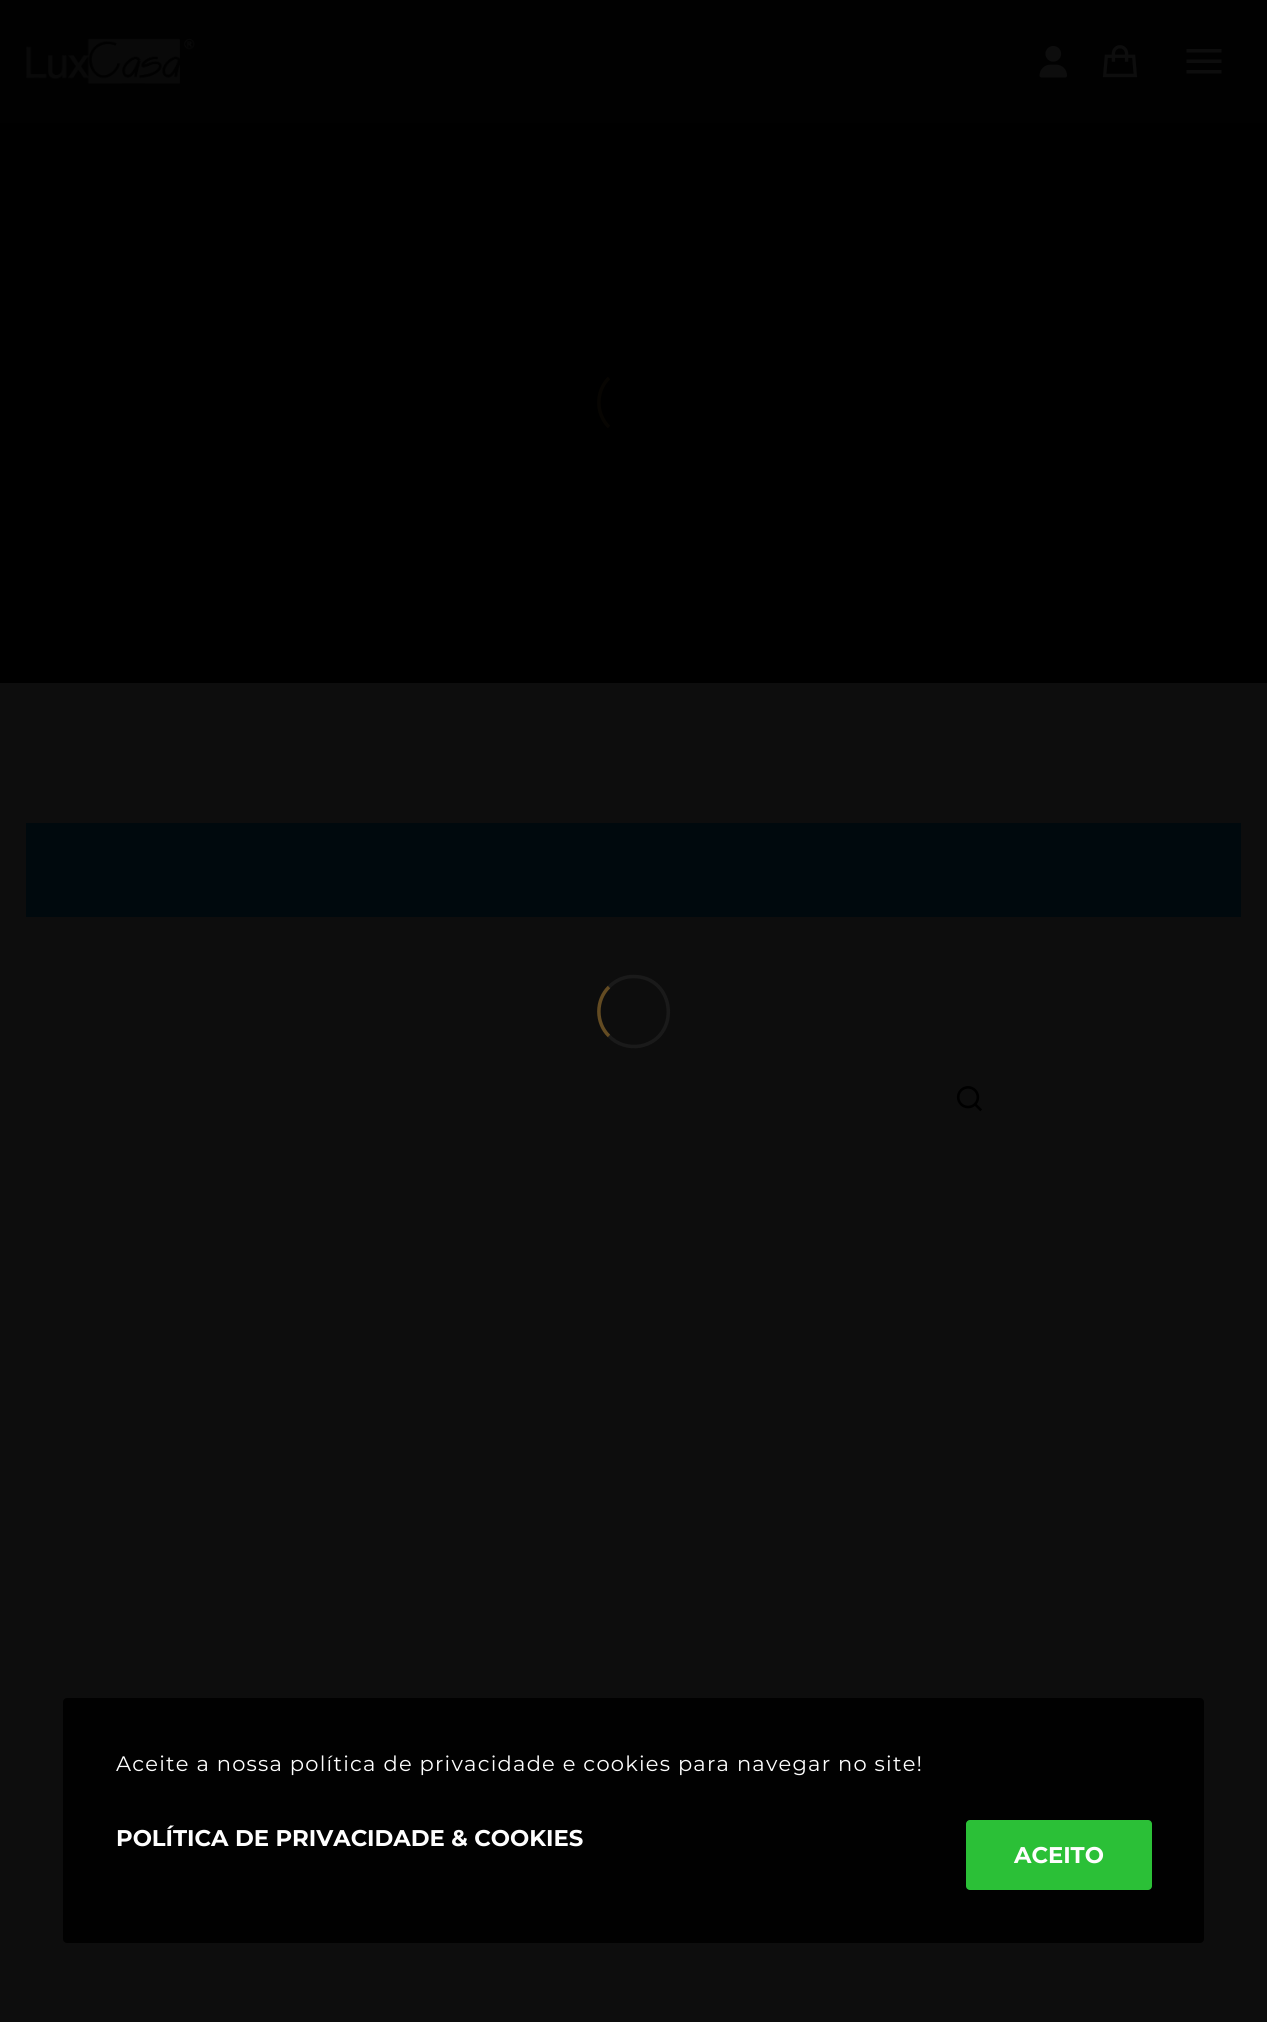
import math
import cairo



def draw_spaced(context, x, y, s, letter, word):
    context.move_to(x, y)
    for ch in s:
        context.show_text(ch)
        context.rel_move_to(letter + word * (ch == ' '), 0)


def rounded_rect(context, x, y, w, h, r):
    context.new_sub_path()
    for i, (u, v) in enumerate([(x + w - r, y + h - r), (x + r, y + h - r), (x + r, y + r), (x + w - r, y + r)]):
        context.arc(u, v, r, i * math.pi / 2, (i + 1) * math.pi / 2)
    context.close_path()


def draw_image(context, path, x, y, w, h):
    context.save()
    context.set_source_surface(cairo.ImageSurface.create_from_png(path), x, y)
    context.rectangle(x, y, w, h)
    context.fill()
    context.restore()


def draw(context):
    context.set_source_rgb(13 / 255, 13 / 255, 13 / 255)
    context.paint()
    context.set_source_rgb(1 / 255, 1 / 255, 1 / 255)
    context.rectangle(0, 0, 1267, 123)
    context.fill()
    draw_image(context, "images/1.png", 26, 38, 169, 46)
    draw_image(context, "images/2.png", 1039, 45, 29, 33)
    draw_image(context, "images/3.png", 1102, 45, 36, 33)
    context.set_source_rgb(13 / 255, 13 / 255, 13 / 255)
    context.new_path()
    context.move_to(1186.5, 59.5)
    context.line_to(1221.5, 59.5)
    context.line_to(1221.5, 63)
    context.line_to(1186.5, 63)
    context.close_path()
    context.move_to(1186.5, 49)
    context.line_to(1221.5, 49)
    context.line_to(1221.5, 52.5)
    context.line_to(1186.5, 52.5)
    context.close_path()
    context.move_to(1186.5, 70)
    context.line_to(1221.5, 70)
    context.line_to(1221.5, 73.5)
    context.line_to(1186.5, 73.5)
    context.close_path()
    context.fill()
    context.set_source_rgb(0, 0, 0)
    context.rectangle(0, 123, 1267, 560)
    context.fill()
    context.new_path()
    context.move_to(609, 427)
    context.curve_to(595.5, 414, 595.5, 391, 609, 378)
    context.set_source_rgb(7 / 255, 5 / 255, 2 / 255)
    context.set_line_width(3.5)
    context.stroke()
    context.set_source_rgb(0, 9 / 255, 13 / 255)
    context.rectangle(26, 823, 1215, 94)
    context.fill()
    draw_image(context, "images/4.png", 956, 1086, 26, 26)
    context.new_path()
    context.move_to(609, 987)
    context.curve_to(615.5, 980, 624.5, 976.5, 633.5, 976.5)
    context.curve_to(675.5, 976.5, 681.5, 1037.5, 640.5, 1046)
    context.curve_to(629, 1048, 617, 1044.5, 609, 1036)
    context.set_source_rgb(26 / 255, 26 / 255, 26 / 255)
    context.stroke()
    context.new_path()
    context.move_to(609, 1036)
    context.curve_to(595.5, 1023, 595.5, 1000, 609, 987)
    context.set_source_rgb(99 / 255, 75 / 255, 34 / 255)
    context.stroke()
    context.set_source_rgba(0, 0, 0, 0.9)
    rounded_rect(context, 63, 1698, 1141, 245, 4)
    context.fill()
    context.set_source_rgb(43 / 255, 192 / 255, 55 / 255)
    rounded_rect(context, 966, 1820, 186, 70, 4)
    context.fill()
    context.select_font_face("Montserrat")
    context.set_font_size(21)
    context.set_source_rgb(254 / 255, 254 / 255, 254 / 255)
    draw_spaced(context, 116, 1771, "Aceite a nossa política de privacidade e cookies para navegar no site!", 1.22, 0)
    context.select_font_face("Montserrat", cairo.FontSlant.NORMAL, cairo.FontWeight.BOLD)
    context.set_font_size(22.75)
    context.move_to(116, 1846)
    context.show_text("POLÍTICA DE PRIVACIDADE & COOKIES")
    context.move_to(1014, 1863)
    context.show_text("ACEITO")


surface = cairo.ImageSurface(cairo.Format.RGB24, 1267, 2022)
context = cairo.Context(surface)
options = cairo.FontOptions()
options.set_hint_metrics(cairo.HintMetrics.OFF)
options.set_hint_style(cairo.HintStyle.NONE)
context.set_font_options(options)
context.set_miter_limit(4)
draw(context)
surface.write_to_png("out.png")
